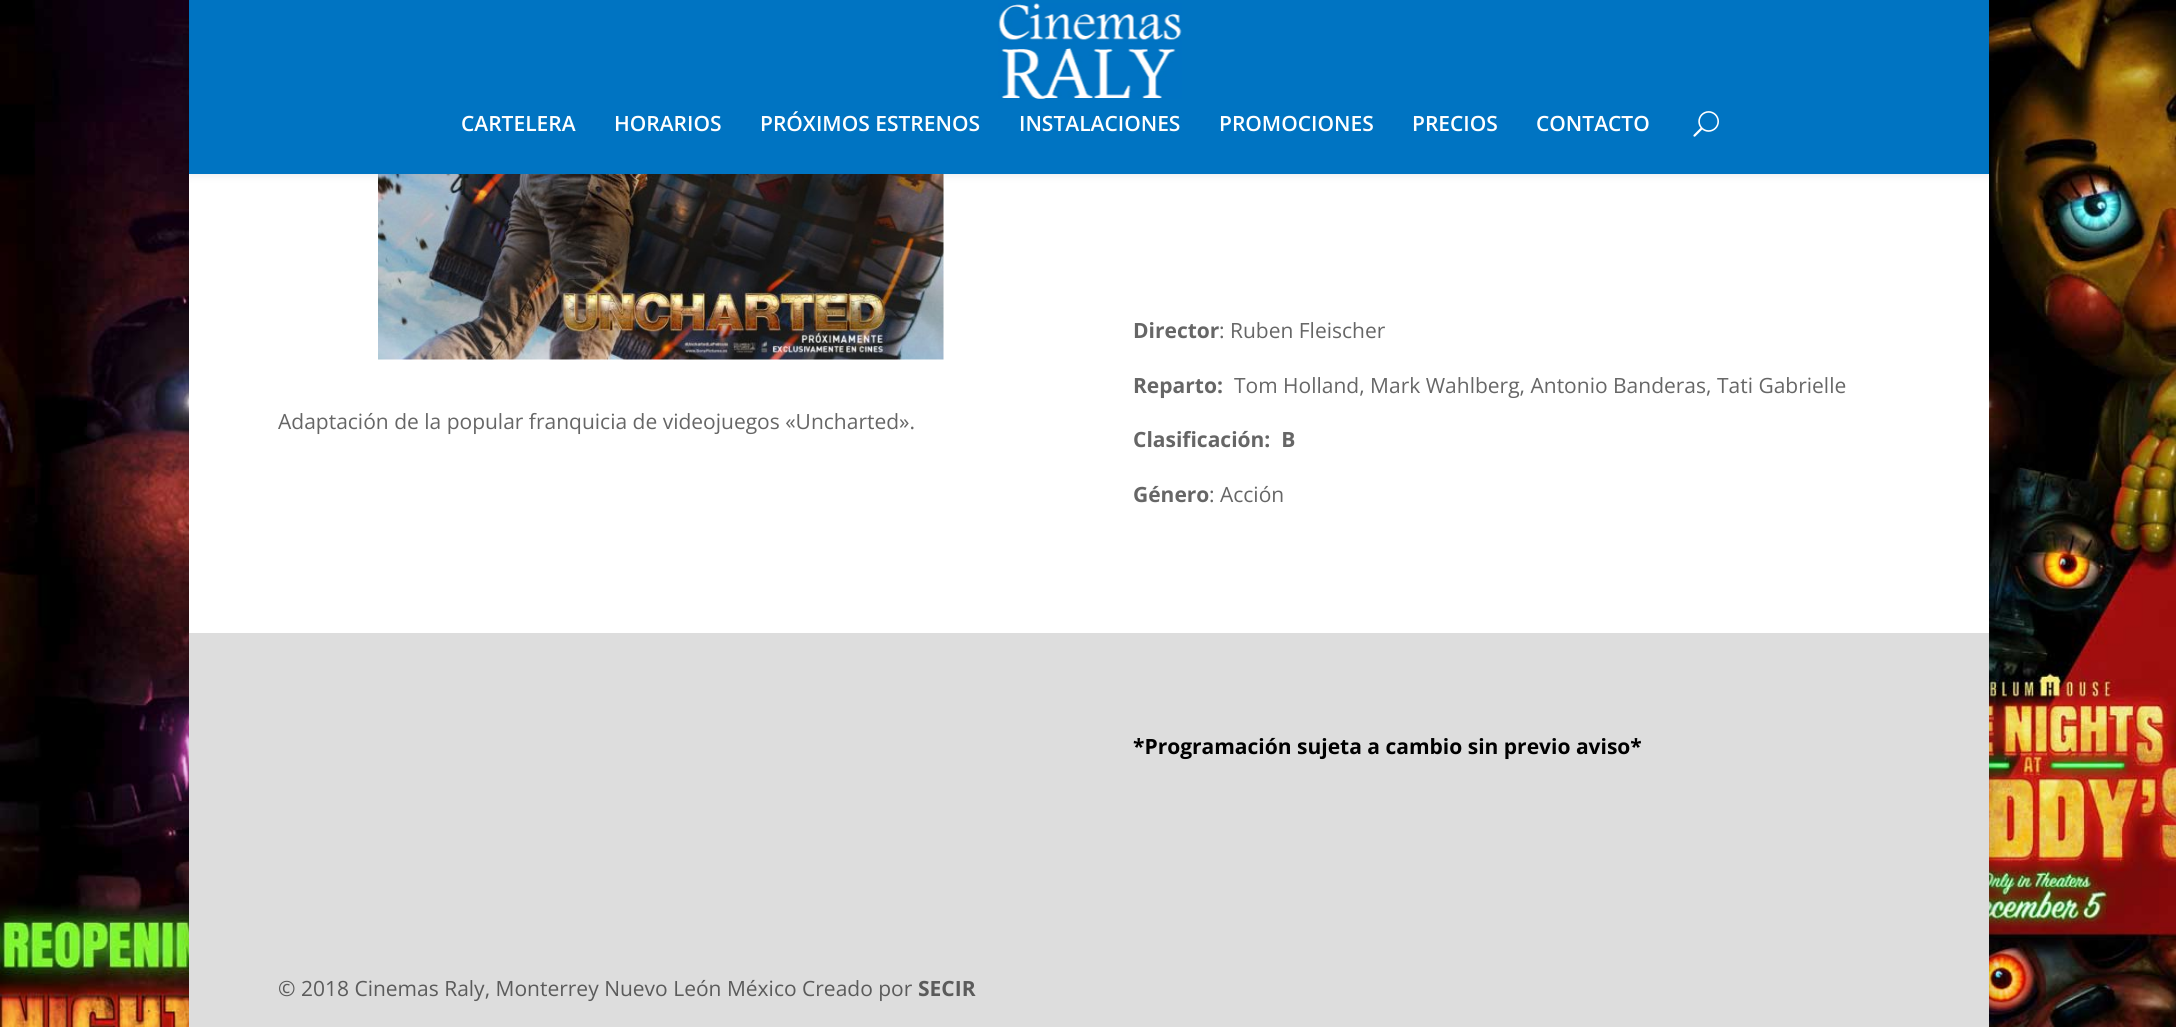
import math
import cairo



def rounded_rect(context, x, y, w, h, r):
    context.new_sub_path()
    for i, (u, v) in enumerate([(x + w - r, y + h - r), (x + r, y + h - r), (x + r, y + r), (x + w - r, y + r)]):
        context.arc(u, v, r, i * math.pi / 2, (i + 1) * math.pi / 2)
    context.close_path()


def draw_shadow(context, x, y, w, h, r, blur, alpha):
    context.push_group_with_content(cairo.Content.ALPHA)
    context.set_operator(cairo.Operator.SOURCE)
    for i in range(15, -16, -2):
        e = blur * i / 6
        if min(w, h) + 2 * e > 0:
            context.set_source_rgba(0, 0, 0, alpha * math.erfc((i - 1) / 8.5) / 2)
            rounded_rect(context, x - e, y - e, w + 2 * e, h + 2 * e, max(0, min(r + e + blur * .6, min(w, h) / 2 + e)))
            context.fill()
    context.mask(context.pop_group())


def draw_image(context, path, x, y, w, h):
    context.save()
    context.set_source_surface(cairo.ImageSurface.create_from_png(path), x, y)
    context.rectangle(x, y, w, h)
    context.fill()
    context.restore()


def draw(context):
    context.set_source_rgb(1, 1, 1)
    context.paint()
    draw_image(context, "images/1.png", 0, 0, 2176, 1027)
    context.set_source_rgb(0, 0, 0)
    draw_shadow(context, 189, -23, 1800, 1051, 0, 7.5, 0.2)
    context.set_source_rgb(1, 1, 1)
    context.rectangle(189, 174, 1800, 459)
    context.fill()
    draw_image(context, "images/4.png", 378, 174, 566, 186)
    context.set_source_rgb(0, 0, 0)
    draw_shadow(context, 189, 0, 1800, 174, 0, 5, 0.1)
    context.set_source_rgb(0, 116 / 255, 194 / 255)
    context.rectangle(189, 0, 1800, 174)
    context.fill()
    draw_image(context, "images/2.png", 998, 3, 184, 96)
    draw_image(context, "images/3.png", 1693, 111, 26, 26)
    context.set_source_rgb(221 / 255, 221 / 255, 221 / 255)
    context.rectangle(189, 633, 1800, 394)
    context.fill()
    context.select_font_face("Open Sans SemiBold")
    context.set_font_size(21)
    context.set_source_rgb(1, 1, 1)
    context.move_to(461, 131)
    context.show_text("CARTELERA")
    context.move_to(614, 131)
    context.show_text("HORARIOS")
    context.move_to(760, 131)
    context.show_text("PRÓXIMOS ESTRENOS")
    context.move_to(1019, 131)
    context.show_text("INSTALACIONES")
    context.move_to(1219, 131)
    context.show_text("PROMOCIONES")
    context.move_to(1412, 131)
    context.show_text("PRECIOS")
    context.move_to(1536, 131)
    context.show_text("CONTACTO")
    context.select_font_face("Open Sans")
    context.set_source_rgb(102 / 255, 102 / 255, 102 / 255)
    context.move_to(278, 429)
    context.show_text("Adaptación de la popular franquicia de videojuegos «Uncharted».")
    context.select_font_face("Open Sans", cairo.FontSlant.NORMAL, cairo.FontWeight.BOLD)
    context.move_to(1133, 338)
    context.show_text("Director")
    context.select_font_face("Open Sans")
    context.move_to(1219, 338)
    context.show_text(": Ruben Fleischer")
    context.select_font_face("Open Sans", cairo.FontSlant.NORMAL, cairo.FontWeight.BOLD)
    context.move_to(1133, 393)
    context.show_text("Reparto:")
    context.select_font_face("Open Sans")
    context.move_to(1234, 393)
    context.show_text("Tom Holland, Mark Wahlberg, Antonio Banderas, Tati Gabrielle")
    context.select_font_face("Open Sans", cairo.FontSlant.NORMAL, cairo.FontWeight.BOLD)
    context.move_to(1133, 447)
    context.show_text("Clasificación:  B")
    context.move_to(1133, 502)
    context.show_text("Género")
    context.select_font_face("Open Sans")
    context.move_to(1209, 502)
    context.show_text(": Acción")
    context.select_font_face("Open Sans", cairo.FontSlant.NORMAL, cairo.FontWeight.BOLD)
    context.set_source_rgb(0, 0, 0)
    context.move_to(1133, 754)
    context.show_text("*Programación sujeta a cambio sin previo aviso*")
    context.select_font_face("Open Sans")
    context.set_source_rgb(91 / 255, 91 / 255, 91 / 255)
    context.move_to(278, 996)
    context.show_text("© 2018 Cinemas Raly, Monterrey Nuevo León México Creado por")
    context.select_font_face("Open Sans", cairo.FontSlant.NORMAL, cairo.FontWeight.BOLD)
    context.move_to(918, 996)
    context.show_text("SECIR")


surface = cairo.ImageSurface(cairo.Format.RGB24, 2176, 1027)
context = cairo.Context(surface)
options = cairo.FontOptions()
options.set_hint_metrics(cairo.HintMetrics.OFF)
options.set_hint_style(cairo.HintStyle.NONE)
context.set_font_options(options)
context.set_miter_limit(4)
draw(context)
surface.write_to_png("out.png")
